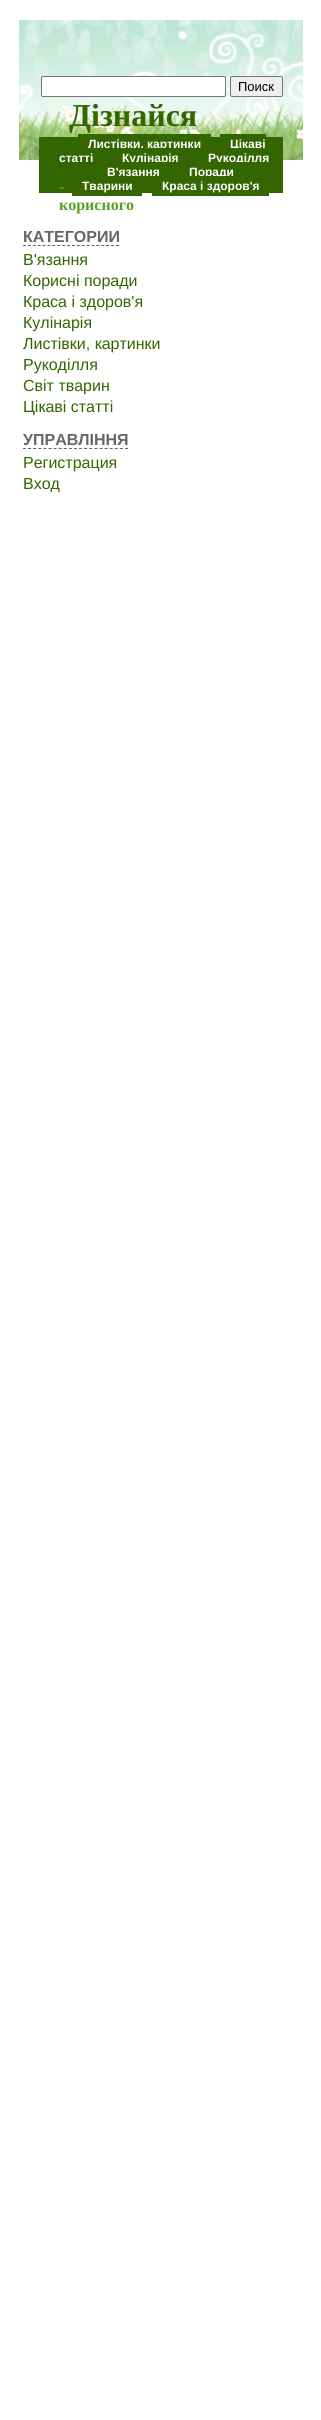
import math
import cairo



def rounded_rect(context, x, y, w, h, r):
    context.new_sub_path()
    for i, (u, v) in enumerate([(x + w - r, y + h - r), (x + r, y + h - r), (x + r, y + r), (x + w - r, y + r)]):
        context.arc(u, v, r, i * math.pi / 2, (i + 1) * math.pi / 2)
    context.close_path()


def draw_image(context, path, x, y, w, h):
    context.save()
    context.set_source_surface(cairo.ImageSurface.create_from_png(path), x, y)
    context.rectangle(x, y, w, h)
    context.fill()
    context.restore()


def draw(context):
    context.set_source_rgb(1, 1, 1)
    context.paint()
    draw_image(context, "images/1.png", 19, 20, 284, 140)
    context.set_source_rgb(1, 1, 1)
    rounded_rect(context, 41.5, 76.5, 184, 20, 1.5)
    context.fill_preserve()
    context.set_source_rgb(118 / 255, 118 / 255, 118 / 255)
    context.set_line_width(1)
    context.stroke()
    context.set_source_rgb(239 / 255, 239 / 255, 239 / 255)
    rounded_rect(context, 230.5, 76.5, 52, 20, 1.5)
    context.fill_preserve()
    context.set_source_rgb(118 / 255, 118 / 255, 118 / 255)
    context.stroke()
    context.set_source_rgb(51 / 255, 102 / 255, 0)
    context.rectangle(39, 137, 244, 56)
    context.fill()
    context.rectangle(78, 134, 133, 3)
    context.fill()
    context.rectangle(220, 134, 46, 3)
    context.fill()
    context.new_path()
    context.move_to(23, 245.5)
    context.line_to(119, 245.5)
    context.set_source_rgb(102 / 255, 102 / 255, 102 / 255)
    context.set_dash([3, 1.89])
    context.stroke()
    context.new_path()
    context.move_to(23, 448.5)
    context.line_to(128, 448.5)
    context.set_dash([3, 2.1])
    context.stroke()
    context.select_font_face("Liberation Sans")
    context.set_font_size(13)
    context.set_source_rgb(0, 0, 0)
    context.move_to(238, 91)
    context.show_text("Поиск")
    context.select_font_face("Liberation Serif", cairo.FontSlant.NORMAL, cairo.FontWeight.BOLD)
    context.set_font_size(32)
    context.set_source_rgb(51 / 255, 102 / 255, 0)
    context.move_to(69, 126)
    context.show_text("Дізнайся")
    context.set_font_size(16)
    context.set_source_rgb(90 / 255, 159 / 255, 37 / 255)
    context.move_to(59, 192)
    context.show_text("-")
    context.move_to(59, 210)
    context.show_text("корисного")
    context.select_font_face("Liberation Sans", cairo.FontSlant.NORMAL, cairo.FontWeight.BOLD)
    context.set_font_size(12)
    context.set_source_rgb(1, 1, 1)
    context.move_to(88, 148)
    context.show_text("Листівки, картинки")
    context.move_to(230, 148)
    context.show_text("Цікаві")
    context.move_to(59, 162)
    context.show_text("статті")
    context.set_source_rgb(51 / 255, 102 / 255, 0)
    context.rectangle(88, 148, 1, 1)
    context.fill()
    context.set_source_rgb(1, 1, 1)
    context.move_to(122, 162)
    context.show_text("Кулінарія")
    context.set_source_rgb(51 / 255, 102 / 255, 0)
    context.rectangle(141, 148, 24, 3)
    context.fill()
    context.set_source_rgb(1, 1, 1)
    context.move_to(208, 162)
    context.show_text("Рукоділля")
    context.set_source_rgb(51 / 255, 102 / 255, 0)
    context.rectangle(237, 148, 18, 3)
    context.fill()
    context.set_source_rgb(1, 1, 1)
    context.move_to(107, 176)
    context.show_text("В'язання")
    context.set_source_rgb(51 / 255, 102 / 255, 0)
    context.rectangle(130, 162, 36, 3)
    context.fill()
    context.set_source_rgb(1, 1, 1)
    context.move_to(189, 176)
    context.show_text("Поради")
    context.set_source_rgb(51 / 255, 102 / 255, 0)
    context.rectangle(216, 162, 28, 3)
    context.fill()
    context.rectangle(72, 176, 70, 20)
    context.fill()
    context.set_source_rgb(1, 1, 1)
    context.move_to(82, 190)
    context.show_text("Тварини")
    context.set_source_rgb(51 / 255, 102 / 255, 0)
    context.rectangle(152, 176, 117, 20)
    context.fill()
    context.set_source_rgb(1, 1, 1)
    context.move_to(162, 190)
    context.show_text("Краса і здоров'я")
    context.set_font_size(16)
    context.set_source_rgb(102 / 255, 102 / 255, 102 / 255)
    context.move_to(23, 242)
    context.show_text("КАТЕГОРИИ")
    context.select_font_face("Liberation Sans")
    context.set_source_rgb(51 / 255, 102 / 255, 0)
    context.move_to(23, 265)
    context.show_text("В'язання")
    context.move_to(23, 286)
    context.show_text("Корисні поради")
    context.move_to(23, 307)
    context.show_text("Краса і здоров'я")
    context.move_to(23, 328)
    context.show_text("Кулінарія")
    context.move_to(23, 349)
    context.show_text("Листівки, картинки")
    context.move_to(23, 370)
    context.show_text("Рукоділля")
    context.move_to(23, 391)
    context.show_text("Світ тварин")
    context.move_to(23, 412)
    context.show_text("Цікаві статті")
    context.select_font_face("Liberation Sans", cairo.FontSlant.NORMAL, cairo.FontWeight.BOLD)
    context.set_source_rgb(102 / 255, 102 / 255, 102 / 255)
    context.move_to(23, 445)
    context.show_text("УПРАВЛІННЯ")
    context.select_font_face("Liberation Sans")
    context.set_source_rgb(51 / 255, 102 / 255, 0)
    context.move_to(23, 468)
    context.show_text("Регистрация")
    context.move_to(23, 489)
    context.show_text("Вход")


surface = cairo.ImageSurface(cairo.Format.RGB24, 321, 2420)
context = cairo.Context(surface)
options = cairo.FontOptions()
options.set_hint_metrics(cairo.HintMetrics.OFF)
options.set_hint_style(cairo.HintStyle.NONE)
context.set_font_options(options)
context.set_miter_limit(4)
draw(context)
surface.write_to_png("out.png")
